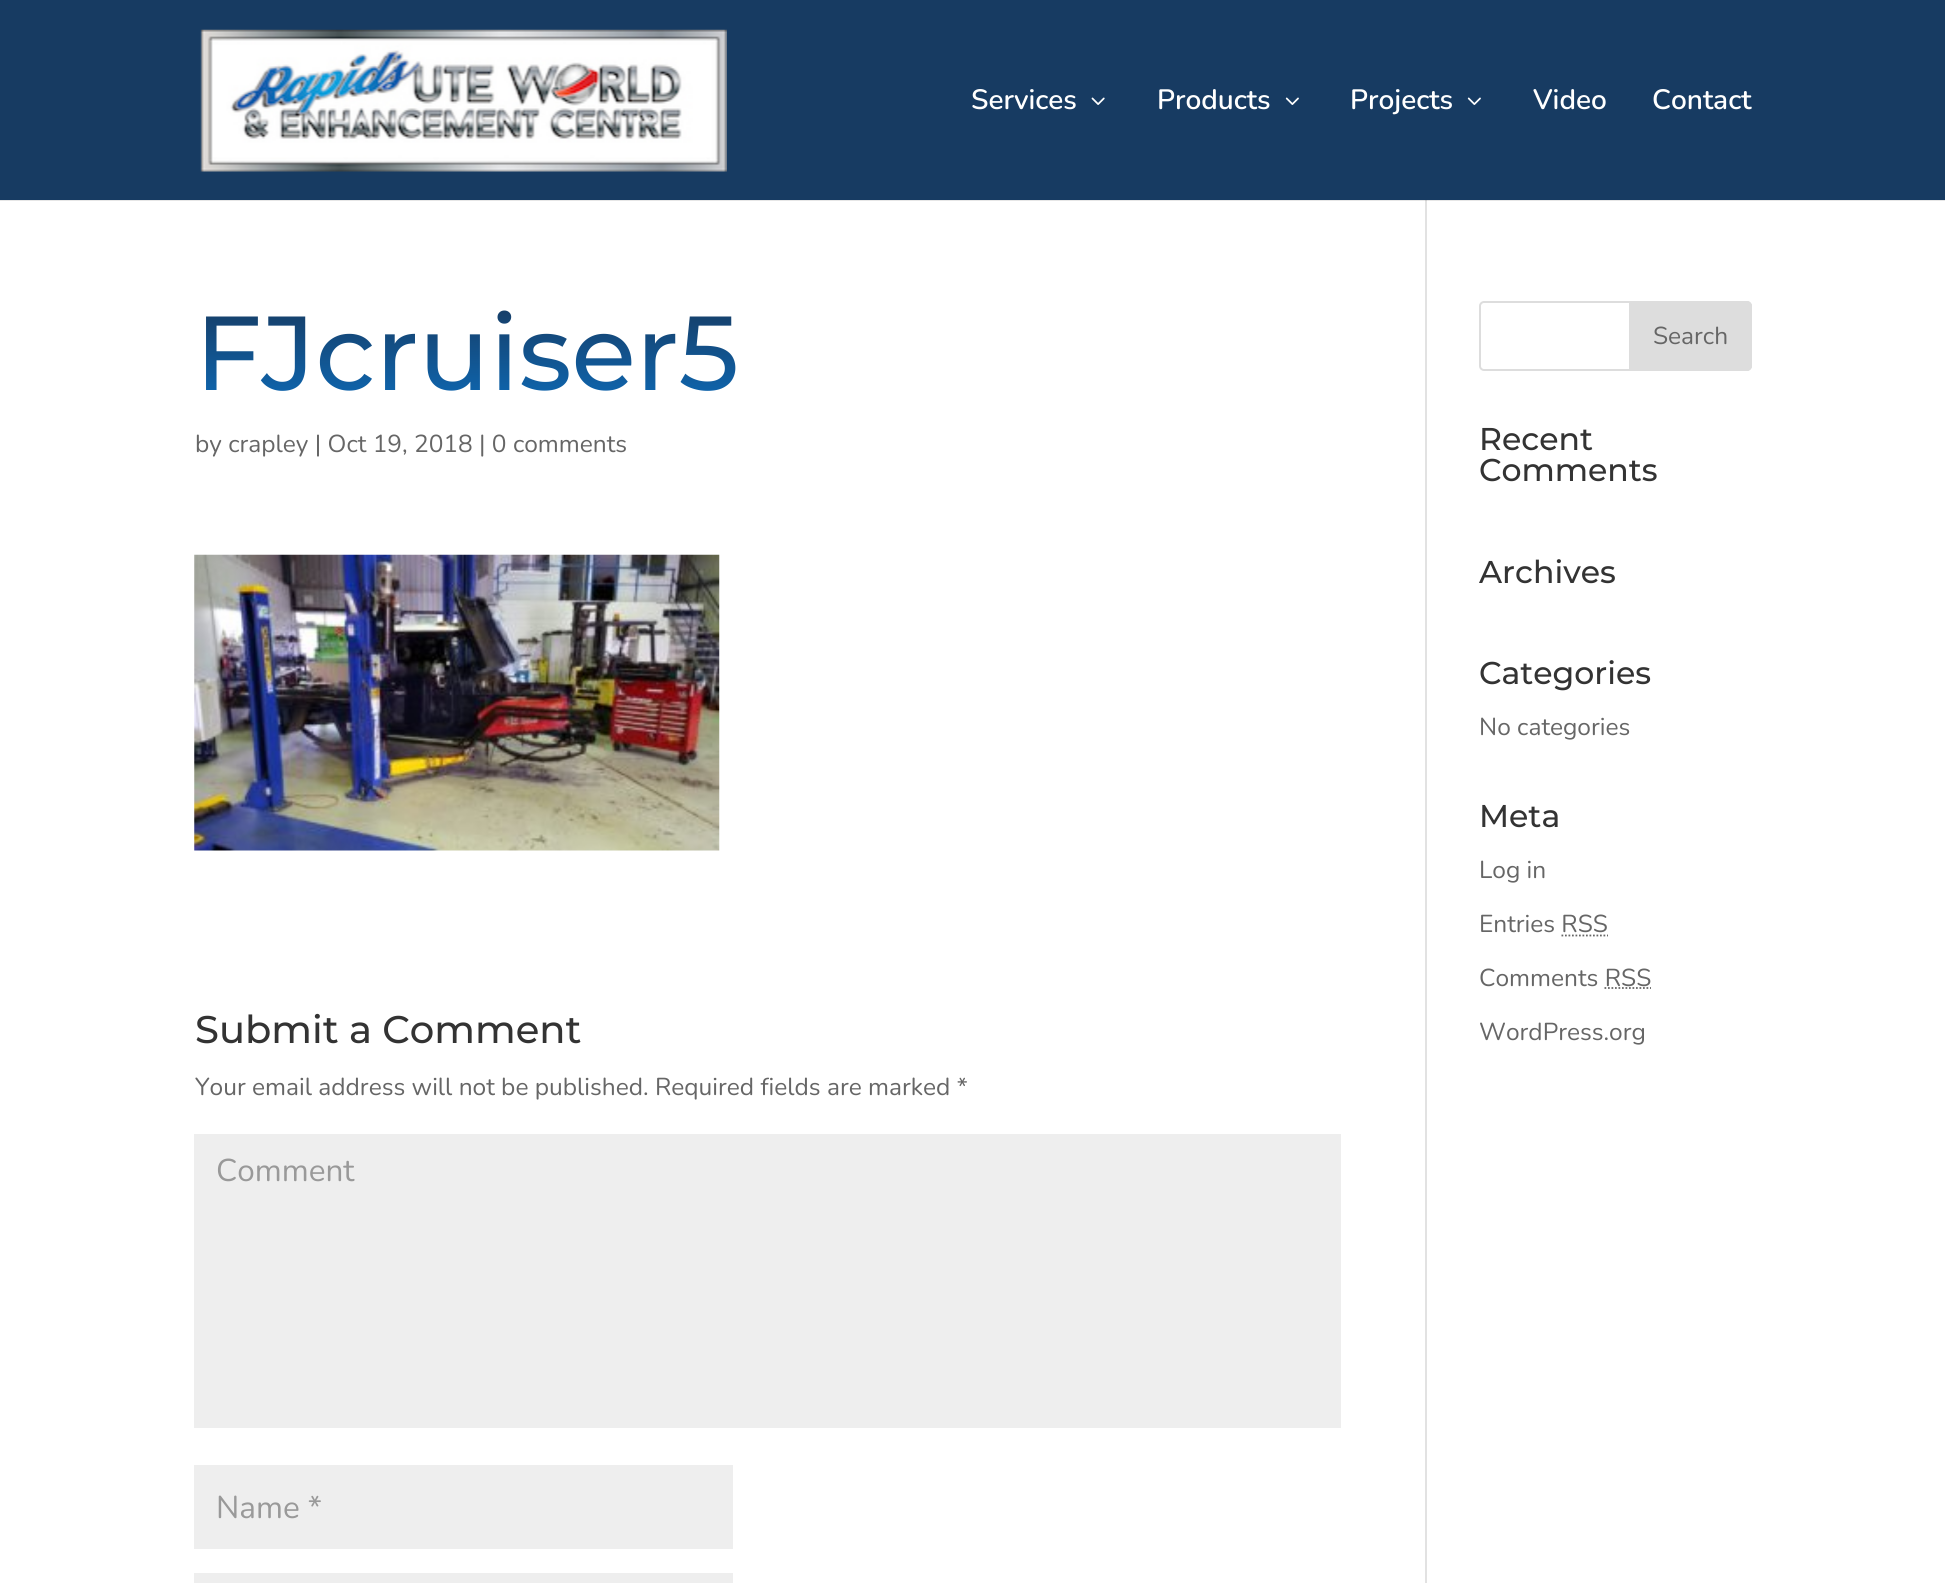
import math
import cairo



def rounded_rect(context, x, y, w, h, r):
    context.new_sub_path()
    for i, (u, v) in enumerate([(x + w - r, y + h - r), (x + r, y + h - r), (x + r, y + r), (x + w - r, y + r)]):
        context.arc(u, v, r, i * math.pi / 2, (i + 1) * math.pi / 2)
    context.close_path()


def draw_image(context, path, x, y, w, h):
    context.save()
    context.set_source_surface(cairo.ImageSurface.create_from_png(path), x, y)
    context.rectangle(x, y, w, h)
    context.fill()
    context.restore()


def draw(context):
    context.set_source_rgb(1, 1, 1)
    context.paint()
    context.set_source_rgb(230 / 255, 230 / 255, 230 / 255)
    context.rectangle(0, 200, 1945, 1)
    context.fill()
    context.set_source_rgb(23 / 255, 59 / 255, 98 / 255)
    context.rectangle(0, 0, 1945, 200)
    context.fill()
    draw_image(context, "images/1.png", 200, 29, 527, 143)
    draw_image(context, "images/2.png", 1091, 97, 14, 8)
    draw_image(context, "images/3.png", 1285, 97, 14, 8)
    draw_image(context, "images/3.png", 1467, 97, 14, 8)
    context.set_source_rgb(226 / 255, 226 / 255, 226 / 255)
    context.rectangle(1425, 200, 2, 1383)
    context.fill()
    context.set_source_rgb(203 / 255, 203 / 255, 203 / 255)
    context.rectangle(1425, 200, 2, 1)
    context.fill()
    draw_image(context, "images/4.png", 194, 554, 526, 297)
    context.set_source_rgb(238 / 255, 238 / 255, 238 / 255)
    context.rectangle(194, 1134, 1147, 294)
    context.fill()
    context.rectangle(194, 1465, 539, 84)
    context.fill()
    context.rectangle(194, 1573, 539, 10)
    context.fill()
    rounded_rect(context, 1480, 302, 271, 68, 4)
    context.set_source_rgb(221 / 255, 221 / 255, 221 / 255)
    context.stroke()
    context.new_path()
    context.move_to(1630, 302)
    context.line_to(1747, 302)
    context.curve_to(1749, 302, 1751, 304, 1751, 306)
    context.line_to(1751, 366)
    context.curve_to(1751, 368, 1749, 370, 1747, 370)
    context.line_to(1630, 370)
    context.close_path()
    context.fill_preserve()
    context.stroke()
    context.new_path()
    context.move_to(1561.5, 935.5)
    context.line_to(1608, 935.5)
    context.set_source_rgb(102 / 255, 102 / 255, 102 / 255)
    context.set_line_width(1.8)
    context.set_dash([1.75, 1.75])
    context.stroke()
    context.new_path()
    context.move_to(1604.5, 988)
    context.line_to(1651, 988)
    context.stroke()
    context.select_font_face("Nunito SemiBold")
    context.set_font_size(28)
    context.set_source_rgb(1, 1, 1)
    context.move_to(971, 109)
    context.show_text("Services")
    context.move_to(1157, 109)
    context.show_text("Products")
    context.move_to(1350, 109)
    context.show_text("Projects")
    context.move_to(1533, 109)
    context.show_text("Video")
    context.move_to(1652, 109)
    context.show_text("Contact")
    context.select_font_face("Montserrat Medium")
    context.set_font_size(105)
    gradient = cairo.LinearGradient(768, 301, 768, 424)
    gradient.add_color_stop_rgba(0, 23 / 255, 59 / 255, 98 / 255, 1)
    gradient.add_color_stop_rgba(1, 12 / 255, 113 / 255, 195 / 255, 1)
    context.set_source(gradient)
    context.move_to(195, 390)
    context.show_text("FJcruiser5")
    context.select_font_face("Nunito")
    context.set_font_size(24.5)
    context.set_source_rgb(102 / 255, 102 / 255, 102 / 255)
    context.move_to(195, 452)
    context.show_text("by crapley | Oct 19, 2018 | 0 comments")
    context.select_font_face("Montserrat Medium")
    context.set_font_size(38.5)
    context.set_source_rgb(51 / 255, 51 / 255, 51 / 255)
    context.move_to(195, 1043)
    context.show_text("Submit a Comment")
    context.select_font_face("Nunito")
    context.set_font_size(24.5)
    context.set_source_rgb(102 / 255, 102 / 255, 102 / 255)
    context.move_to(195, 1095)
    context.show_text("Your email address will not be published. Required fields are marked *")
    context.set_font_size(31.5)
    context.set_source_rgb(153 / 255, 153 / 255, 153 / 255)
    context.move_to(216, 1181)
    context.show_text("Comment")
    context.move_to(216, 1518)
    context.show_text("Name *")
    context.set_font_size(24.5)
    context.set_source_rgb(102 / 255, 102 / 255, 102 / 255)
    context.move_to(1653, 344)
    context.show_text("Search")
    context.select_font_face("Montserrat Medium")
    context.set_font_size(31.5)
    context.set_source_rgb(51 / 255, 51 / 255, 51 / 255)
    context.move_to(1479, 450)
    context.show_text("Recent")
    context.move_to(1479, 481)
    context.show_text("Comments")
    context.move_to(1479, 583)
    context.show_text("Archives")
    context.move_to(1479, 684)
    context.show_text("Categories")
    context.select_font_face("Nunito")
    context.set_font_size(24.5)
    context.set_source_rgb(102 / 255, 102 / 255, 102 / 255)
    context.move_to(1479, 735)
    context.show_text("No categories")
    context.select_font_face("Montserrat Medium")
    context.set_font_size(31.5)
    context.set_source_rgb(51 / 255, 51 / 255, 51 / 255)
    context.move_to(1479, 827)
    context.show_text("Meta")
    context.select_font_face("Nunito")
    context.set_font_size(24.5)
    context.set_source_rgb(102 / 255, 102 / 255, 102 / 255)
    context.move_to(1479, 878)
    context.show_text("Log in")
    context.move_to(1479, 932)
    context.show_text("Entries RSS")
    context.move_to(1479, 986)
    context.show_text("Comments RSS")
    context.move_to(1479, 1040)
    context.show_text("WordPress.org")


surface = cairo.ImageSurface(cairo.Format.RGB24, 1945, 1583)
context = cairo.Context(surface)
options = cairo.FontOptions()
options.set_hint_metrics(cairo.HintMetrics.OFF)
options.set_hint_style(cairo.HintStyle.NONE)
context.set_font_options(options)
context.set_miter_limit(4)
draw(context)
surface.write_to_png("out.png")
